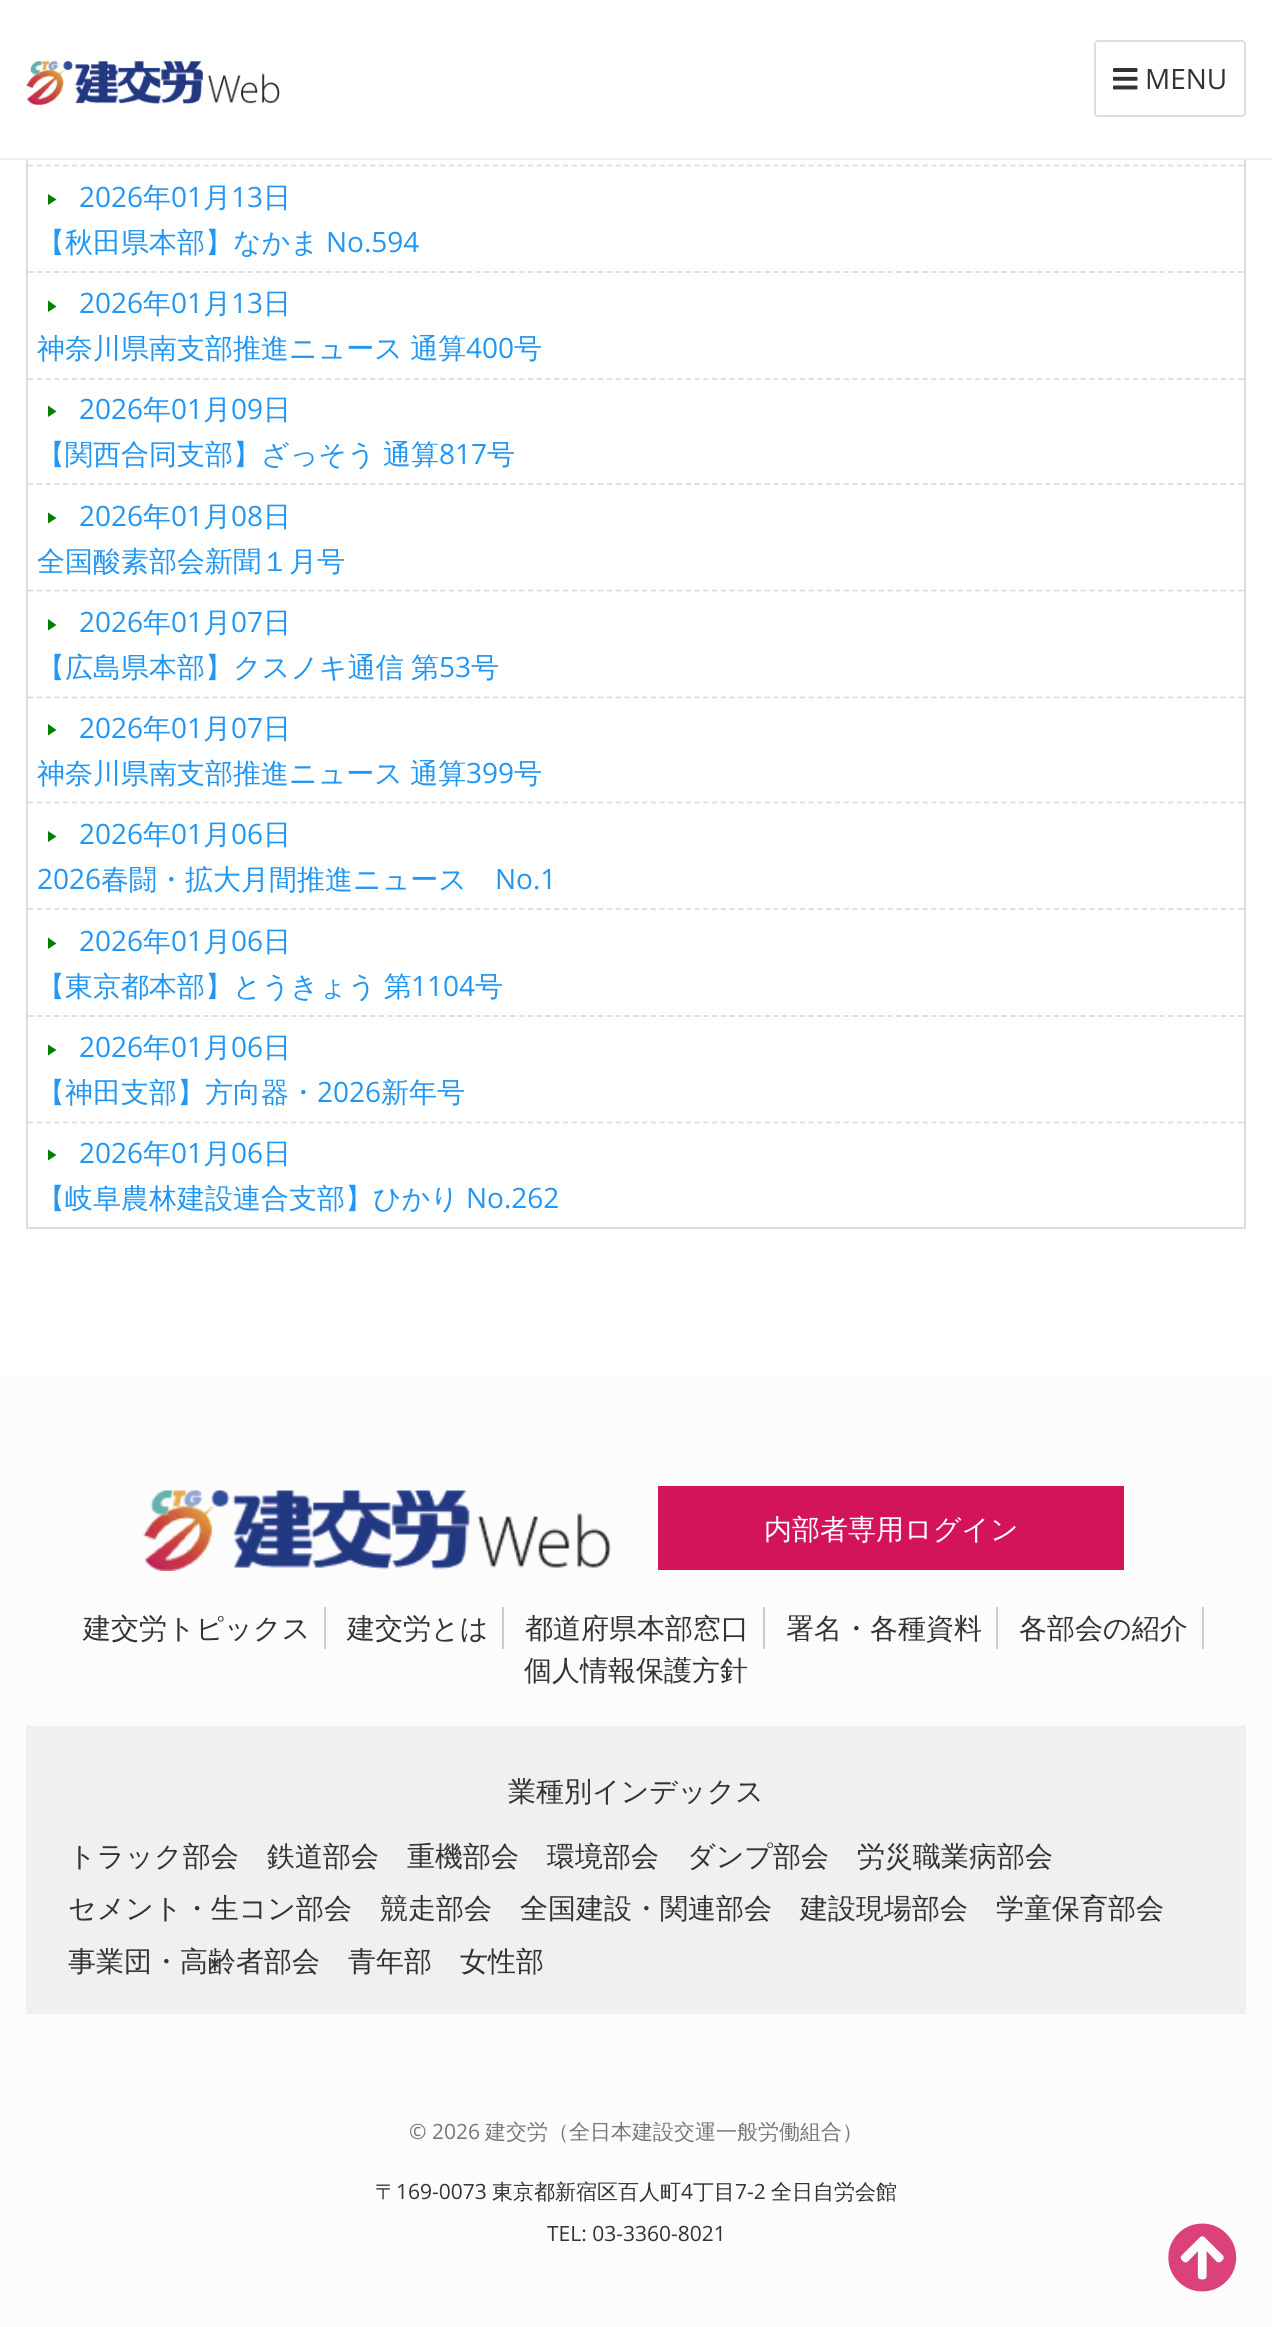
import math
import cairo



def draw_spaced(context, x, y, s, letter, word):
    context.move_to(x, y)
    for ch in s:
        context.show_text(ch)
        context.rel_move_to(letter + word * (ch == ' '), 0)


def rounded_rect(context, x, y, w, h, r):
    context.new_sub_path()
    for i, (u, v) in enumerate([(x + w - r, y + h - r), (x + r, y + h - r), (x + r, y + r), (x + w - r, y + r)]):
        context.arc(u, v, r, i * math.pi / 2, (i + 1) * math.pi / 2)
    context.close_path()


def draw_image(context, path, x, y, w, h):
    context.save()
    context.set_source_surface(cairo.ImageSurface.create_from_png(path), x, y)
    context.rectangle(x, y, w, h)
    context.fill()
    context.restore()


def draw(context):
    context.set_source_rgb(1, 1, 1)
    context.paint()
    context.rectangle(27, -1, 1218, 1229)
    context.set_source_rgb(221 / 255, 221 / 255, 221 / 255)
    context.stroke()
    context.set_source_rgb(1, 1, 1)
    context.rectangle(26, 0, 1220, 158)
    context.fill()
    context.set_source_rgb(238 / 255, 238 / 255, 238 / 255)
    context.rectangle(0, 158, 1272, 2)
    context.fill()
    draw_image(context, "images/1.png", 26, 61, 254, 44)
    rounded_rect(context, 1095, 41, 150, 75, 3)
    context.set_source_rgb(221 / 255, 221 / 255, 221 / 255)
    context.stroke()
    draw_image(context, "images/2.png", 1113, 68, 25, 22)
    context.new_path()
    context.move_to(28, 165.5)
    context.line_to(1244, 165.5)
    context.set_line_width(1.8)
    context.set_dash([5.25, 3.52])
    context.stroke()
    context.new_path()
    context.move_to(28, 272)
    context.line_to(1244, 272)
    context.stroke()
    context.set_source_rgb(0, 128 / 255, 0)
    context.new_path()
    context.move_to(48, 194)
    context.line_to(56.5, 199.5)
    context.line_to(48, 205)
    context.close_path()
    context.fill()
    context.new_path()
    context.move_to(28, 379)
    context.line_to(1244, 379)
    context.set_source_rgb(221 / 255, 221 / 255, 221 / 255)
    context.stroke()
    context.set_source_rgb(0, 128 / 255, 0)
    context.new_path()
    context.move_to(48, 300.5)
    context.line_to(56.5, 306.5)
    context.line_to(48, 312)
    context.close_path()
    context.fill()
    context.new_path()
    context.move_to(28, 484)
    context.line_to(1244, 484)
    context.set_source_rgb(221 / 255, 221 / 255, 221 / 255)
    context.stroke()
    context.set_source_rgb(0, 128 / 255, 0)
    context.new_path()
    context.move_to(48, 405.5)
    context.line_to(56.5, 411.5)
    context.line_to(48, 417)
    context.close_path()
    context.fill()
    context.new_path()
    context.move_to(28, 590.5)
    context.line_to(1244, 590.5)
    context.set_source_rgb(221 / 255, 221 / 255, 221 / 255)
    context.stroke()
    context.set_source_rgb(0, 128 / 255, 0)
    context.new_path()
    context.move_to(48, 512.5)
    context.line_to(56.5, 518)
    context.line_to(48, 523.5)
    context.close_path()
    context.fill()
    context.new_path()
    context.move_to(28, 697.5)
    context.line_to(1244, 697.5)
    context.set_source_rgb(221 / 255, 221 / 255, 221 / 255)
    context.stroke()
    context.set_source_rgb(0, 128 / 255, 0)
    context.new_path()
    context.move_to(48, 619)
    context.line_to(56.5, 625)
    context.line_to(48, 630.5)
    context.close_path()
    context.fill()
    context.new_path()
    context.move_to(28, 802.5)
    context.line_to(1244, 802.5)
    context.set_source_rgb(221 / 255, 221 / 255, 221 / 255)
    context.stroke()
    context.set_source_rgb(0, 128 / 255, 0)
    context.new_path()
    context.move_to(48, 724)
    context.line_to(56.5, 730)
    context.line_to(48, 735.5)
    context.close_path()
    context.fill()
    context.new_path()
    context.move_to(28, 909)
    context.line_to(1244, 909)
    context.set_source_rgb(221 / 255, 221 / 255, 221 / 255)
    context.stroke()
    context.set_source_rgb(0, 128 / 255, 0)
    context.new_path()
    context.move_to(48, 831)
    context.line_to(56.5, 836.5)
    context.line_to(48, 842)
    context.close_path()
    context.fill()
    context.new_path()
    context.move_to(28, 1016)
    context.line_to(1244, 1016)
    context.set_source_rgb(221 / 255, 221 / 255, 221 / 255)
    context.stroke()
    context.set_source_rgb(0, 128 / 255, 0)
    context.new_path()
    context.move_to(48, 937.5)
    context.line_to(56.5, 943.5)
    context.line_to(48, 949)
    context.close_path()
    context.fill()
    context.new_path()
    context.move_to(28, 1122.5)
    context.line_to(1244, 1122.5)
    context.set_source_rgb(221 / 255, 221 / 255, 221 / 255)
    context.stroke()
    context.set_source_rgb(0, 128 / 255, 0)
    context.new_path()
    context.move_to(48, 1044.5)
    context.line_to(56.5, 1050)
    context.line_to(48, 1055.5)
    context.close_path()
    context.fill()
    context.new_path()
    context.move_to(48, 1149.5)
    context.line_to(56.5, 1155)
    context.line_to(48, 1160.5)
    context.close_path()
    context.fill()
    context.set_source_rgb(252 / 255, 252 / 255, 252 / 255)
    context.rectangle(0, 1376, 1272, 951)
    context.fill()
    draw_image(context, "images/3.png", 143, 1490, 468, 81)
    context.set_source_rgb(211 / 255, 20 / 255, 90 / 255)
    context.rectangle(658, 1486, 466, 84)
    context.fill()
    context.set_source_rgb(204 / 255, 204 / 255, 204 / 255)
    context.rectangle(324, 1607, 2, 42)
    context.fill()
    context.rectangle(502, 1607, 2, 42)
    context.fill()
    context.rectangle(763, 1607, 2, 42)
    context.fill()
    context.rectangle(996, 1607, 2, 42)
    context.fill()
    context.rectangle(1202, 1607, 2, 42)
    context.fill()
    context.set_source_rgb(240 / 255, 240 / 255, 240 / 255)
    context.rectangle(26, 1726, 1220, 288)
    context.fill()
    draw_image(context, "images/4.png", 1168, 2223, 69, 69)
    context.select_font_face("Open Sans")
    context.set_font_size(28)
    context.set_source_rgb(51 / 255, 51 / 255, 51 / 255)
    context.move_to(1145, 89)
    context.show_text("MENU")
    context.set_source_rgb(33 / 255, 150 / 255, 243 / 255)
    context.move_to(79, 207)
    context.show_text("2026")
    context.select_font_face("WenQuanYi Zen Hei Medium")
    context.move_to(143, 207)
    context.show_text("年")
    context.select_font_face("Open Sans")
    context.move_to(171, 207)
    context.show_text("01")
    context.select_font_face("WenQuanYi Zen Hei Medium")
    context.move_to(203, 207)
    context.show_text("月")
    context.select_font_face("Open Sans")
    context.move_to(231, 207)
    context.show_text("13")
    context.select_font_face("WenQuanYi Zen Hei Medium")
    context.move_to(263, 207)
    context.show_text("日")
    context.move_to(37, 252)
    context.show_text("【秋田県本部】なかま")
    context.select_font_face("Open Sans")
    context.move_to(326, 252)
    context.show_text("No.594")
    context.move_to(79, 313)
    context.show_text("2026")
    context.select_font_face("WenQuanYi Zen Hei Medium")
    context.move_to(143, 313)
    context.show_text("年")
    context.select_font_face("Open Sans")
    context.move_to(171, 313)
    context.show_text("01")
    context.select_font_face("WenQuanYi Zen Hei Medium")
    context.move_to(203, 313)
    context.show_text("月")
    context.select_font_face("Open Sans")
    context.move_to(231, 313)
    context.show_text("13")
    context.select_font_face("WenQuanYi Zen Hei Medium")
    context.move_to(263, 313)
    context.show_text("日")
    draw_spaced(context, 37, 358, "神奈川県南支部推進ニュース 通算", 0, -1)
    context.select_font_face("Open Sans")
    context.move_to(466, 358)
    context.show_text("400")
    context.select_font_face("WenQuanYi Zen Hei Medium")
    context.move_to(514, 358)
    context.show_text("号")
    context.select_font_face("Open Sans")
    context.move_to(79, 419)
    context.show_text("2026")
    context.select_font_face("WenQuanYi Zen Hei Medium")
    context.move_to(143, 419)
    context.show_text("年")
    context.select_font_face("Open Sans")
    context.move_to(171, 419)
    context.show_text("01")
    context.select_font_face("WenQuanYi Zen Hei Medium")
    context.move_to(203, 419)
    context.show_text("月")
    context.select_font_face("Open Sans")
    context.move_to(231, 419)
    context.show_text("09")
    context.select_font_face("WenQuanYi Zen Hei Medium")
    context.move_to(263, 419)
    context.show_text("日")
    draw_spaced(context, 37, 464, "【関西合同支部】ざっそう 通算", 0, -1)
    context.select_font_face("Open Sans")
    context.move_to(439, 464)
    context.show_text("817")
    context.select_font_face("WenQuanYi Zen Hei Medium")
    context.move_to(487, 464)
    context.show_text("号")
    context.select_font_face("Open Sans")
    context.move_to(79, 526)
    context.show_text("2026")
    context.select_font_face("WenQuanYi Zen Hei Medium")
    context.move_to(143, 526)
    context.show_text("年")
    context.select_font_face("Open Sans")
    context.move_to(171, 526)
    context.show_text("01")
    context.select_font_face("WenQuanYi Zen Hei Medium")
    context.move_to(203, 526)
    context.show_text("月")
    context.select_font_face("Open Sans")
    context.move_to(231, 526)
    context.show_text("08")
    context.select_font_face("WenQuanYi Zen Hei Medium")
    context.move_to(263, 526)
    context.show_text("日")
    context.move_to(37, 571)
    context.show_text("全国酸素部会新聞１月号")
    context.select_font_face("Open Sans")
    context.move_to(79, 632)
    context.show_text("2026")
    context.select_font_face("WenQuanYi Zen Hei Medium")
    context.move_to(143, 632)
    context.show_text("年")
    context.select_font_face("Open Sans")
    context.move_to(171, 632)
    context.show_text("01")
    context.select_font_face("WenQuanYi Zen Hei Medium")
    context.move_to(203, 632)
    context.show_text("月")
    context.select_font_face("Open Sans")
    context.move_to(231, 632)
    context.show_text("07")
    context.select_font_face("WenQuanYi Zen Hei Medium")
    context.move_to(263, 632)
    context.show_text("日")
    draw_spaced(context, 37, 677, "【広島県本部】クスノキ通信 第", 0, -1)
    context.select_font_face("Open Sans")
    context.move_to(439, 677)
    context.show_text("53")
    context.select_font_face("WenQuanYi Zen Hei Medium")
    context.move_to(471, 677)
    context.show_text("号")
    context.select_font_face("Open Sans")
    context.move_to(79, 738)
    context.show_text("2026")
    context.select_font_face("WenQuanYi Zen Hei Medium")
    context.move_to(143, 738)
    context.show_text("年")
    context.select_font_face("Open Sans")
    context.move_to(171, 738)
    context.show_text("01")
    context.select_font_face("WenQuanYi Zen Hei Medium")
    context.move_to(203, 738)
    context.show_text("月")
    context.select_font_face("Open Sans")
    context.move_to(231, 738)
    context.show_text("07")
    context.select_font_face("WenQuanYi Zen Hei Medium")
    context.move_to(263, 738)
    context.show_text("日")
    draw_spaced(context, 37, 783, "神奈川県南支部推進ニュース 通算", 0, -1)
    context.select_font_face("Open Sans")
    context.move_to(466, 783)
    context.show_text("399")
    context.select_font_face("WenQuanYi Zen Hei Medium")
    context.move_to(514, 783)
    context.show_text("号")
    context.select_font_face("Open Sans")
    context.move_to(79, 844)
    context.show_text("2026")
    context.select_font_face("WenQuanYi Zen Hei Medium")
    context.move_to(143, 844)
    context.show_text("年")
    context.select_font_face("Open Sans")
    context.move_to(171, 844)
    context.show_text("01")
    context.select_font_face("WenQuanYi Zen Hei Medium")
    context.move_to(203, 844)
    context.show_text("月")
    context.select_font_face("Open Sans")
    context.move_to(231, 844)
    context.show_text("06")
    context.select_font_face("WenQuanYi Zen Hei Medium")
    context.move_to(263, 844)
    context.show_text("日")
    context.select_font_face("Open Sans")
    context.move_to(37, 889)
    context.show_text("2026")
    context.select_font_face("WenQuanYi Zen Hei Medium")
    context.move_to(101, 889)
    context.show_text("春闘・拡大月間推進ニュース")
    context.select_font_face("Open Sans")
    context.move_to(495, 889)
    context.show_text("No.1")
    context.move_to(79, 951)
    context.show_text("2026")
    context.select_font_face("WenQuanYi Zen Hei Medium")
    context.move_to(143, 951)
    context.show_text("年")
    context.select_font_face("Open Sans")
    context.move_to(171, 951)
    context.show_text("01")
    context.select_font_face("WenQuanYi Zen Hei Medium")
    context.move_to(203, 951)
    context.show_text("月")
    context.select_font_face("Open Sans")
    context.move_to(231, 951)
    context.show_text("06")
    context.select_font_face("WenQuanYi Zen Hei Medium")
    context.move_to(263, 951)
    context.show_text("日")
    draw_spaced(context, 37, 996, "【東京都本部】とうきょう 第", 0, -1)
    context.select_font_face("Open Sans")
    context.move_to(411, 996)
    context.show_text("1104")
    context.select_font_face("WenQuanYi Zen Hei Medium")
    context.move_to(475, 996)
    context.show_text("号")
    context.select_font_face("Open Sans")
    context.move_to(79, 1057)
    context.show_text("2026")
    context.select_font_face("WenQuanYi Zen Hei Medium")
    context.move_to(143, 1057)
    context.show_text("年")
    context.select_font_face("Open Sans")
    context.move_to(171, 1057)
    context.show_text("01")
    context.select_font_face("WenQuanYi Zen Hei Medium")
    context.move_to(203, 1057)
    context.show_text("月")
    context.select_font_face("Open Sans")
    context.move_to(231, 1057)
    context.show_text("06")
    context.select_font_face("WenQuanYi Zen Hei Medium")
    context.move_to(263, 1057)
    context.show_text("日")
    context.move_to(37, 1102)
    context.show_text("【神田支部】方向器・")
    context.select_font_face("Open Sans")
    context.move_to(317, 1102)
    context.show_text("2026")
    context.select_font_face("WenQuanYi Zen Hei Medium")
    context.move_to(381, 1102)
    context.show_text("新年号")
    context.select_font_face("Open Sans")
    context.move_to(79, 1163)
    context.show_text("2026")
    context.select_font_face("WenQuanYi Zen Hei Medium")
    context.move_to(143, 1163)
    context.show_text("年")
    context.select_font_face("Open Sans")
    context.move_to(171, 1163)
    context.show_text("01")
    context.select_font_face("WenQuanYi Zen Hei Medium")
    context.move_to(203, 1163)
    context.show_text("月")
    context.select_font_face("Open Sans")
    context.move_to(231, 1163)
    context.show_text("06")
    context.select_font_face("WenQuanYi Zen Hei Medium")
    context.move_to(263, 1163)
    context.show_text("日")
    context.move_to(37, 1208)
    context.show_text("【岐阜農林建設連合支部】ひかり")
    context.select_font_face("Open Sans")
    context.move_to(466, 1208)
    context.show_text("No.262")
    context.select_font_face("WenQuanYi Zen Hei Medium")
    context.set_source_rgb(1, 1, 1)
    context.move_to(764, 1539)
    context.show_text("内部者専用ログイン")
    context.set_source_rgb(51 / 255, 51 / 255, 51 / 255)
    context.move_to(83, 1638)
    context.show_text("建交労トピックス")
    context.move_to(347, 1638)
    context.show_text("建交労とは")
    context.move_to(525, 1638)
    context.show_text("都道府県本部窓口")
    context.move_to(786, 1638)
    context.show_text("署名・各種資料")
    context.move_to(1019, 1638)
    context.show_text("各部会の紹介")
    context.move_to(524, 1680)
    context.show_text("個人情報保護方針")
    context.move_to(508, 1801)
    context.show_text("業種別インデックス")
    context.move_to(68, 1866)
    context.show_text("トラック部会")
    context.move_to(267, 1866)
    context.show_text("鉄道部会")
    context.move_to(407, 1866)
    context.show_text("重機部会")
    context.move_to(547, 1866)
    context.show_text("環境部会")
    context.move_to(687, 1866)
    context.show_text("ダンプ部会")
    context.move_to(857, 1866)
    context.show_text("労災職業病部会")
    context.move_to(68, 1918)
    context.show_text("セメント・生コン部会")
    context.move_to(380, 1918)
    context.show_text("競走部会")
    context.move_to(520, 1918)
    context.show_text("全国建設・関連部会")
    context.move_to(800, 1918)
    context.show_text("建設現場部会")
    context.move_to(996, 1918)
    context.show_text("学童保育部会")
    context.move_to(68, 1971)
    context.show_text("事業団・高齢者部会")
    context.move_to(348, 1971)
    context.show_text("青年部")
    context.move_to(460, 1971)
    context.show_text("女性部")
    context.select_font_face("Open Sans")
    context.set_font_size(21)
    context.set_source_rgb(119 / 255, 119 / 255, 119 / 255)
    context.move_to(409, 2139)
    context.show_text("© 2026")
    context.select_font_face("WenQuanYi Zen Hei Medium")
    context.move_to(485, 2139)
    context.show_text("建交労（全日本建設交運一般労働組合）")
    context.set_source_rgb(51 / 255, 51 / 255, 51 / 255)
    context.move_to(375, 2199)
    context.show_text("〒")
    context.select_font_face("Open Sans")
    context.move_to(396, 2199)
    context.show_text("169-0073")
    context.select_font_face("WenQuanYi Zen Hei Medium")
    context.move_to(492, 2199)
    context.show_text("東京都新宿区百人町")
    context.select_font_face("Open Sans")
    context.move_to(681, 2199)
    context.show_text("4")
    context.select_font_face("WenQuanYi Zen Hei Medium")
    context.move_to(693, 2199)
    context.show_text("丁目")
    context.select_font_face("Open Sans")
    context.move_to(735, 2199)
    context.show_text("7-2")
    context.select_font_face("WenQuanYi Zen Hei Medium")
    context.move_to(771, 2199)
    context.show_text("全日自労会館")
    context.select_font_face("Open Sans")
    context.move_to(547, 2241)
    context.show_text("TEL: 03-3360-8021")


surface = cairo.ImageSurface(cairo.Format.RGB24, 1272, 2327)
context = cairo.Context(surface)
options = cairo.FontOptions()
options.set_hint_metrics(cairo.HintMetrics.OFF)
options.set_hint_style(cairo.HintStyle.NONE)
context.set_font_options(options)
context.set_miter_limit(4)
draw(context)
surface.write_to_png("out.png")
